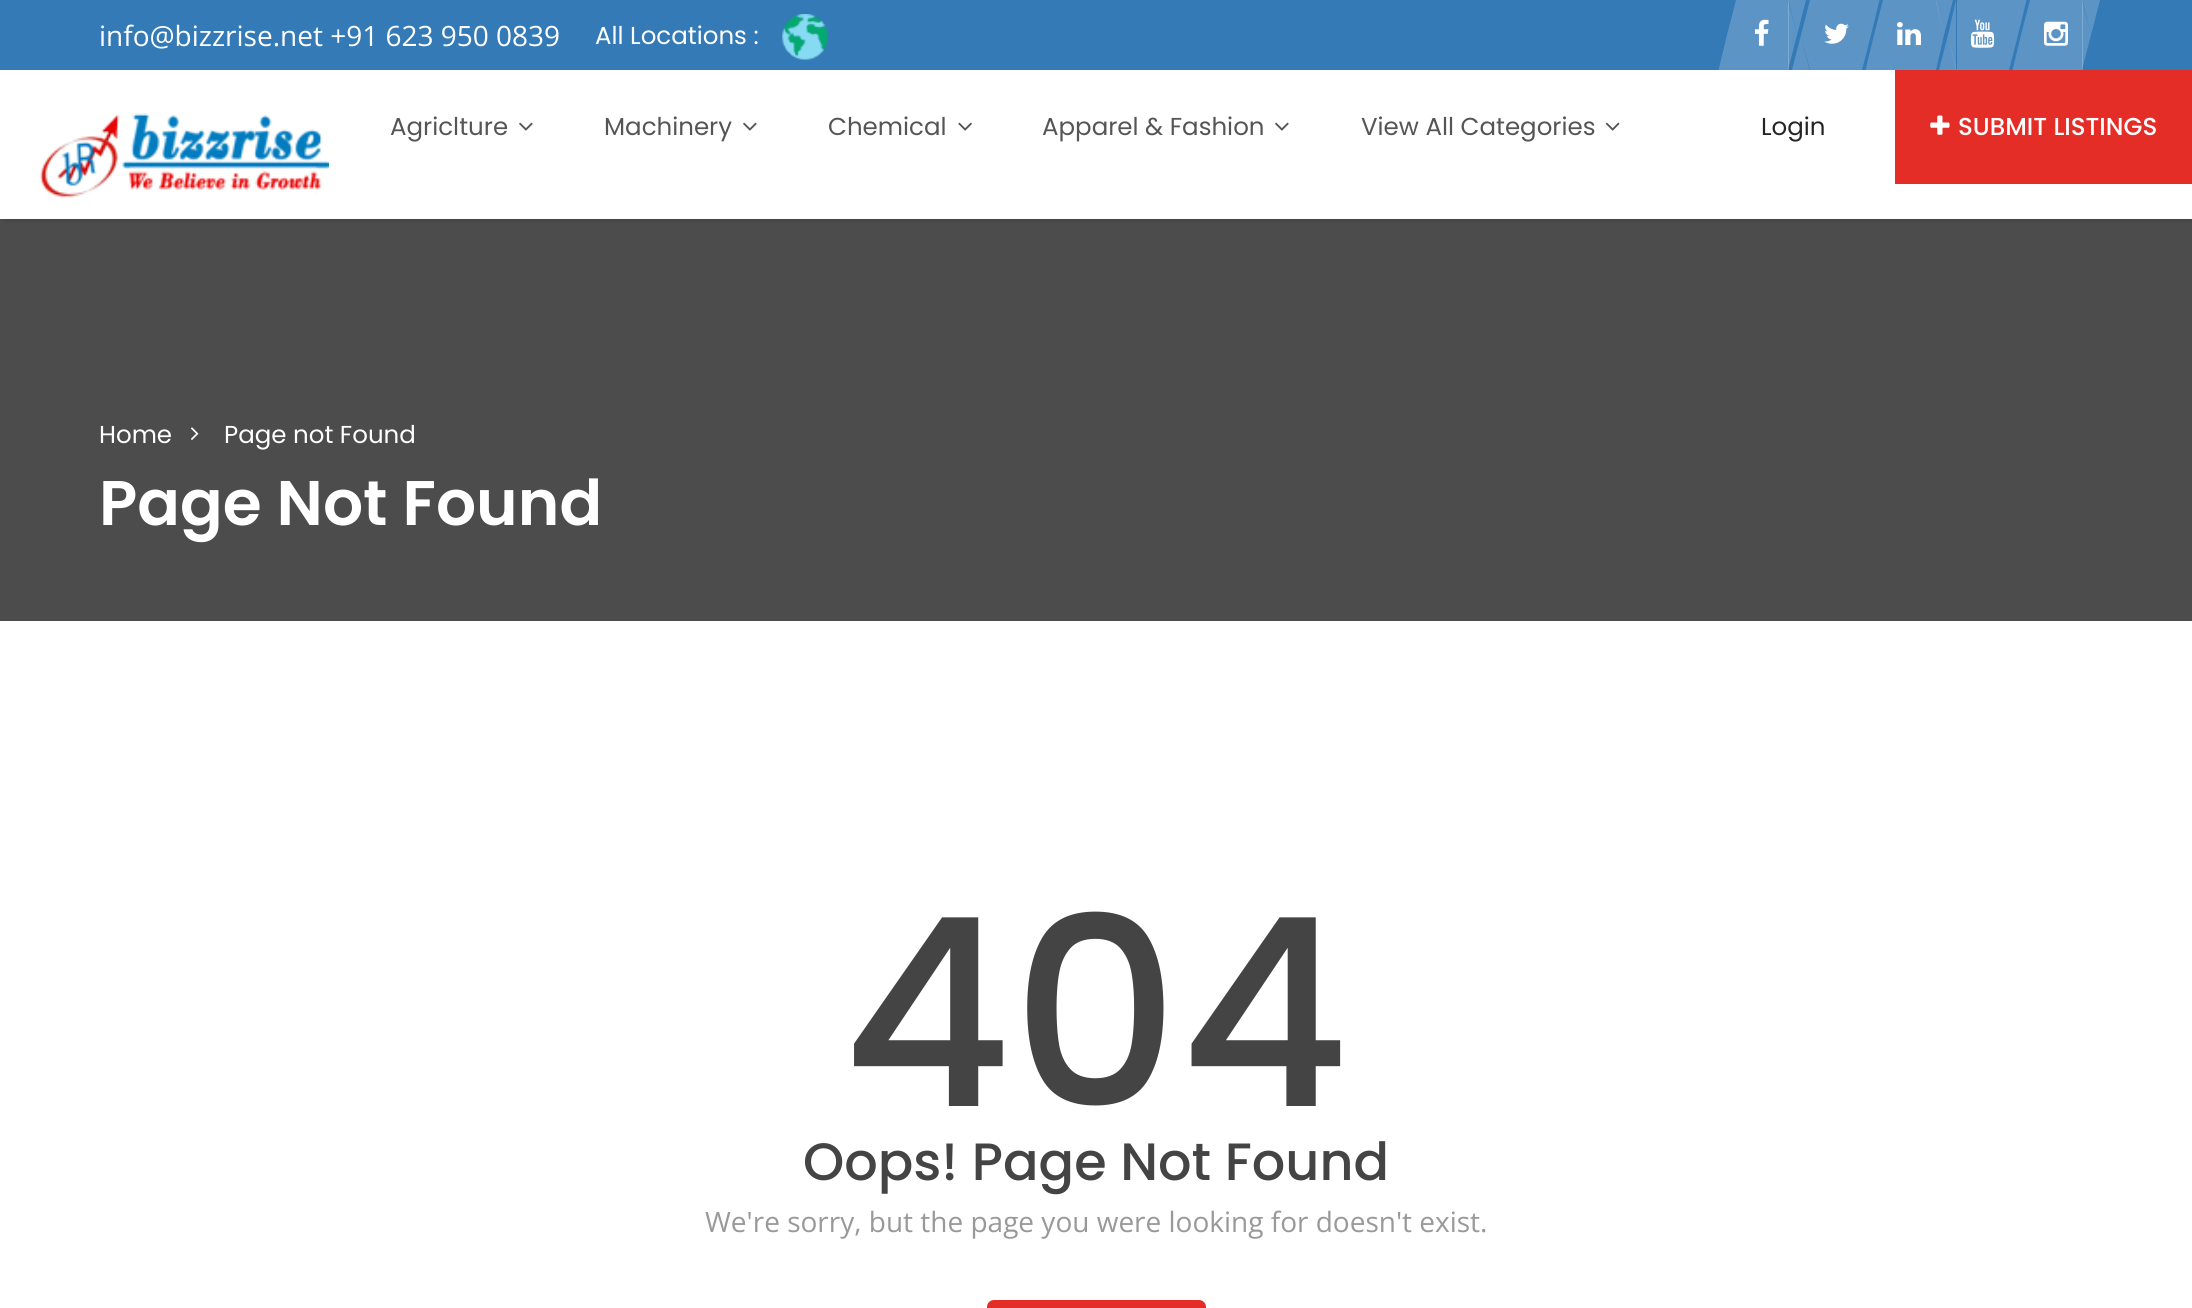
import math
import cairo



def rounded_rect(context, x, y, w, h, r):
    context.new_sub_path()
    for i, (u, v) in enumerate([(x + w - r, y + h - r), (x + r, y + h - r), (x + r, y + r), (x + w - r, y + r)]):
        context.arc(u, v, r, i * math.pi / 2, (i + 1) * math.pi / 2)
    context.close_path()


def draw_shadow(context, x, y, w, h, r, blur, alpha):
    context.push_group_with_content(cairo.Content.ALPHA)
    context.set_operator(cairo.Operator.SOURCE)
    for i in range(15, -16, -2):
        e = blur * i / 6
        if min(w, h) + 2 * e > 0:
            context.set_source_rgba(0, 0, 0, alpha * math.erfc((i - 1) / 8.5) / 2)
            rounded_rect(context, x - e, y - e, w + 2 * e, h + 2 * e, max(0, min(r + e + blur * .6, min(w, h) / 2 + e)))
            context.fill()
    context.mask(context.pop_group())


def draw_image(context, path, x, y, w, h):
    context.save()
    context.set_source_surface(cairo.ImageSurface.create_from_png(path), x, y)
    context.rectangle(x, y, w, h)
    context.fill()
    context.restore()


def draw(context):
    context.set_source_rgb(1, 1, 1)
    context.paint()
    context.set_source_rgb(0, 0, 0)
    draw_shadow(context, 4, 74, 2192, 148, 0, 2, 0.1)
    context.set_source_rgb(51 / 255, 122 / 255, 183 / 255)
    context.rectangle(0, 0, 2192, 70)
    context.fill()
    draw_image(context, "images/1.png", 782, 14, 46, 46)
    context.set_source_rgb(92 / 255, 149 / 255, 197 / 255)
    context.rectangle(1736, 0, 53, 70)
    context.fill()
    context.new_path()
    context.move_to(1736, 0)
    context.line_to(1736, 70)
    context.line_to(1727, 35)
    context.close_path()
    context.fill()
    context.set_source_rgba(1, 1, 1, 0.2)
    context.new_path()
    context.move_to(1736, 70)
    context.line_to(1718.5, 70)
    context.line_to(1727, 35)
    context.close_path()
    context.fill()
    draw_image(context, "images/2.png", 1755, 19, 14, 27)
    context.set_source_rgb(92 / 255, 149 / 255, 197 / 255)
    context.new_path()
    context.move_to(1788.5, 0)
    context.line_to(1806, 0)
    context.line_to(1797, 35)
    context.close_path()
    context.fill()
    context.set_source_rgba(1, 1, 1, 0.2)
    context.new_path()
    context.move_to(1788, 70)
    context.line_to(1788, 0)
    context.line_to(1797, 35)
    context.close_path()
    context.fill()
    context.set_source_rgb(92 / 255, 149 / 255, 197 / 255)
    context.rectangle(1810, 0, 52, 70)
    context.fill()
    context.new_path()
    context.move_to(1810, 0)
    context.line_to(1810, 70)
    context.line_to(1801, 35)
    context.close_path()
    context.fill()
    context.set_source_rgba(1, 1, 1, 0.2)
    context.new_path()
    context.move_to(1809.5, 70)
    context.line_to(1792, 70)
    context.line_to(1801, 35)
    context.close_path()
    context.fill()
    draw_image(context, "images/3.png", 1824, 23, 25, 21)
    context.set_source_rgb(92 / 255, 149 / 255, 197 / 255)
    context.new_path()
    context.move_to(1862, 0)
    context.line_to(1879.5, 0)
    context.line_to(1871, 35)
    context.close_path()
    context.fill()
    context.set_source_rgba(1, 1, 1, 0.2)
    context.new_path()
    context.move_to(1862, 70)
    context.line_to(1862, 0)
    context.line_to(1871, 35)
    context.close_path()
    context.fill()
    context.set_source_rgb(92 / 255, 149 / 255, 197 / 255)
    context.rectangle(1883, 0, 53, 70)
    context.fill()
    context.new_path()
    context.move_to(1883, 0)
    context.line_to(1883, 70)
    context.line_to(1874, 35)
    context.close_path()
    context.fill()
    context.set_source_rgba(1, 1, 1, 0.2)
    context.new_path()
    context.move_to(1883, 70)
    context.line_to(1865.5, 70)
    context.line_to(1874, 35)
    context.close_path()
    context.fill()
    draw_image(context, "images/4.png", 1897, 22, 24, 23)
    context.set_source_rgb(92 / 255, 149 / 255, 197 / 255)
    context.new_path()
    context.move_to(1935.5, 0)
    context.line_to(1953, 0)
    context.line_to(1944, 35)
    context.close_path()
    context.fill()
    context.set_source_rgba(1, 1, 1, 0.2)
    context.new_path()
    context.move_to(1936, 70)
    context.line_to(1936, 0)
    context.line_to(1944, 35)
    context.close_path()
    context.fill()
    context.set_source_rgb(92 / 255, 149 / 255, 197 / 255)
    context.rectangle(1957, 0, 52, 70)
    context.fill()
    context.new_path()
    context.move_to(1956, 0)
    context.line_to(1956, 70)
    context.line_to(1948, 35)
    context.close_path()
    context.fill()
    context.set_source_rgba(1, 1, 1, 0.2)
    context.new_path()
    context.move_to(1956.5, 70)
    context.line_to(1939, 70)
    context.line_to(1948, 35)
    context.close_path()
    context.fill()
    draw_image(context, "images/5.png", 1970, 19, 25, 29)
    context.set_source_rgb(92 / 255, 149 / 255, 197 / 255)
    context.new_path()
    context.move_to(2009, 0)
    context.line_to(2026.5, 0)
    context.line_to(2018, 35)
    context.close_path()
    context.fill()
    context.set_source_rgba(1, 1, 1, 0.2)
    context.new_path()
    context.move_to(2009, 70)
    context.line_to(2009, 0)
    context.line_to(2018, 35)
    context.close_path()
    context.fill()
    context.set_source_rgb(92 / 255, 149 / 255, 197 / 255)
    context.rectangle(2030, 0, 53, 70)
    context.fill()
    context.new_path()
    context.move_to(2030, 0)
    context.line_to(2030, 70)
    context.line_to(2021, 35)
    context.close_path()
    context.fill()
    context.set_source_rgba(1, 1, 1, 0.2)
    context.new_path()
    context.move_to(2030, 70)
    context.line_to(2012.5, 70)
    context.line_to(2021, 35)
    context.close_path()
    context.fill()
    draw_image(context, "images/6.png", 2044, 21, 24, 25)
    context.set_source_rgb(92 / 255, 149 / 255, 197 / 255)
    context.new_path()
    context.move_to(2082.5, 0)
    context.line_to(2100, 0)
    context.line_to(2091, 35)
    context.close_path()
    context.fill()
    context.set_source_rgba(1, 1, 1, 0.2)
    context.new_path()
    context.move_to(2082, 70)
    context.line_to(2082, 0)
    context.line_to(2091, 35)
    context.close_path()
    context.fill()
    context.set_source_rgb(1, 1, 1)
    context.rectangle(1, 71, 2191, 148)
    context.fill()
    draw_image(context, "images/7.png", 40, 113, 289, 86)
    draw_image(context, "images/8.png", 519, 122, 14, 9)
    draw_image(context, "images/8.png", 743, 122, 14, 9)
    draw_image(context, "images/9.png", 958, 122, 14, 9)
    draw_image(context, "images/8.png", 1275, 122, 14, 9)
    draw_image(context, "images/10.png", 1605, 122, 15, 9)
    context.set_source_rgb(229 / 255, 45 / 255, 39 / 255)
    context.rectangle(1895, 70, 297, 114)
    context.fill()
    draw_image(context, "images/11.png", 1930, 115, 20, 20)
    context.set_source_rgba(0, 0, 0, 0.7)
    context.rectangle(0, 219, 2192, 402)
    context.fill()
    draw_image(context, "images/12.png", 191, 427, 8, 13)
    context.set_source_rgb(229 / 255, 45 / 255, 39 / 255)
    rounded_rect(context, 988, 1301, 217, 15, 6)
    context.fill_preserve()
    context.stroke()
    context.select_font_face("Open Sans")
    context.set_font_size(28)
    context.set_source_rgb(1, 1, 1)
    context.move_to(99, 46)
    context.show_text("info@bizzrise.net +91 623 950 0839")
    context.select_font_face("Poppins")
    context.set_font_size(24.5)
    context.move_to(595, 44)
    context.show_text("All Locations :")
    context.set_source_rgb(85 / 255, 85 / 255, 85 / 255)
    context.move_to(390, 135)
    context.show_text("Agriclture")
    context.move_to(604, 135)
    context.show_text("Machinery")
    context.move_to(828, 135)
    context.show_text("Chemical")
    context.move_to(1042, 135)
    context.show_text("Apparel & Fashion")
    context.move_to(1361, 135)
    context.show_text("View All Categories")
    context.set_source_rgb(36 / 255, 36 / 255, 36 / 255)
    context.move_to(1761, 135)
    context.show_text("Login")
    context.select_font_face("Poppins Medium")
    context.set_source_rgb(1, 1, 1)
    context.move_to(1958, 135)
    context.show_text("SUBMIT LISTINGS")
    context.select_font_face("Poppins")
    context.move_to(99, 443)
    context.show_text("Home")
    context.move_to(224, 443)
    context.show_text("Page not Found")
    context.select_font_face("Poppins SemiBold")
    context.set_font_size(63)
    context.move_to(99, 525)
    context.show_text("Page Not Found")
    context.select_font_face("Poppins Medium")
    context.set_font_size(262)
    context.set_source_rgb(68 / 255, 68 / 255, 68 / 255)
    context.move_to(842, 1106)
    context.show_text("404")
    context.set_font_size(52.5)
    context.move_to(803, 1180)
    context.show_text("Oops! Page Not Found")
    context.select_font_face("Open Sans")
    context.set_font_size(28)
    context.set_source_rgb(153 / 255, 153 / 255, 153 / 255)
    context.move_to(705, 1232)
    context.show_text("We're sorry, but the page you were looking for doesn't exist.")


surface = cairo.ImageSurface(cairo.Format.RGB24, 2192, 1308)
context = cairo.Context(surface)
options = cairo.FontOptions()
options.set_hint_metrics(cairo.HintMetrics.OFF)
options.set_hint_style(cairo.HintStyle.NONE)
context.set_font_options(options)
context.set_miter_limit(4)
draw(context)
surface.write_to_png("out.png")
